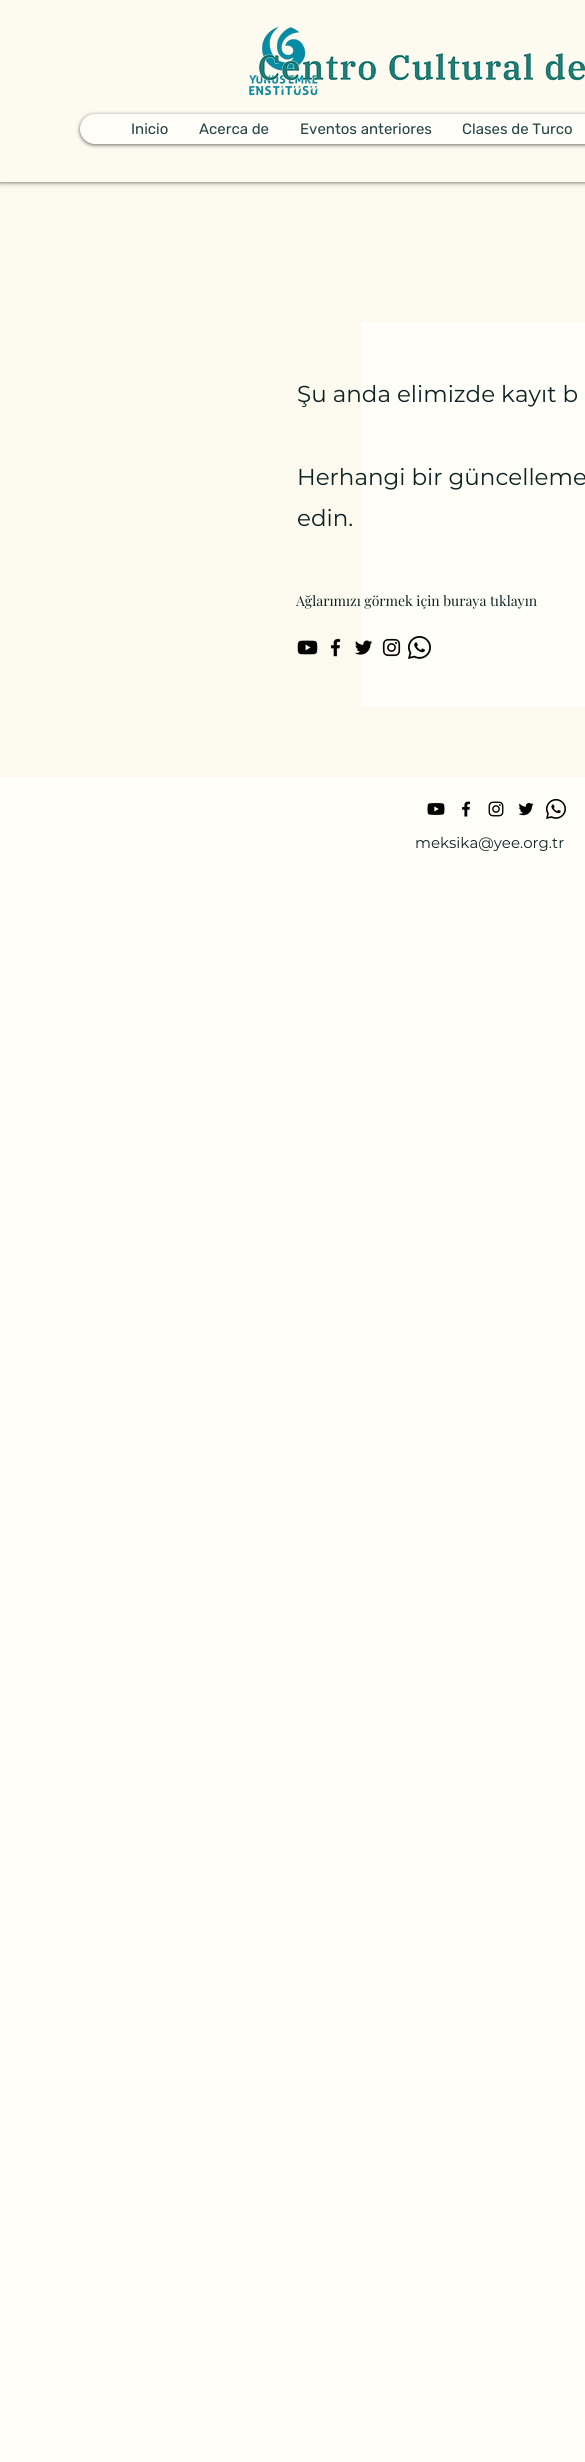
import math
import cairo



def rounded_rect(context, x, y, w, h, r):
    context.new_sub_path()
    for i, (u, v) in enumerate([(x + w - r, y + h - r), (x + r, y + h - r), (x + r, y + r), (x + w - r, y + r)]):
        context.arc(u, v, r, i * math.pi / 2, (i + 1) * math.pi / 2)
    context.close_path()


def draw_shadow(context, x, y, w, h, r, blur, alpha):
    context.push_group_with_content(cairo.Content.ALPHA)
    context.set_operator(cairo.Operator.SOURCE)
    for i in range(15, -16, -2):
        e = blur * i / 6
        if min(w, h) + 2 * e > 0:
            context.set_source_rgba(0, 0, 0, alpha * math.erfc((i - 1) / 8.5) / 2)
            rounded_rect(context, x - e, y - e, w + 2 * e, h + 2 * e, max(0, min(r + e + blur * .6, min(w, h) / 2 + e)))
            context.fill()
    context.mask(context.pop_group())


def draw_image(context, path, x, y, w, h):
    context.save()
    context.set_source_surface(cairo.ImageSurface.create_from_png(path), x, y)
    context.rectangle(x, y, w, h)
    context.fill()
    context.restore()


def draw(context):
    context.set_source_rgb(1, 254 / 255, 248 / 255)
    context.paint()
    context.set_source_rgb(252 / 255, 250 / 255, 238 / 255)
    context.rectangle(0, 182, 585, 595)
    context.fill()
    context.set_source_rgb(0, 0, 0)
    draw_shadow(context, 0, 0, 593, 182, 0, 2.5, 0.7)
    context.set_source_rgb(253 / 255, 251 / 255, 240 / 255)
    context.rectangle(0, 0, 585, 182)
    context.fill()
    draw_image(context, "images/1.png", 249, 26, 69, 70)
    draw_image(context, "images/2.png", 259, 53, 326, 28)
    context.set_source_rgb(0, 0, 0)
    draw_shadow(context, 80, 115, 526, 30, 15, 2, 0.6)
    context.set_source_rgb(1, 254 / 255, 248 / 255)
    rounded_rect(context, 80, 114, 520, 30, 15)
    context.fill()
    context.rectangle(361, 322, 224, 385)
    context.fill()
    draw_image(context, "images/3.png", 297, 640, 21, 15)
    draw_image(context, "images/4.png", 330, 638, 11, 19)
    draw_image(context, "images/5.png", 355, 640, 18, 15)
    draw_image(context, "images/6.png", 382, 638, 19, 19)
    draw_image(context, "images/7.png", 408, 636, 23, 23)
    draw_image(context, "images/8.png", 427, 802, 18, 13)
    draw_image(context, "images/9.png", 462, 801, 9, 16)
    draw_image(context, "images/10.png", 488, 801, 16, 16)
    draw_image(context, "images/11.png", 518, 802, 16, 14)
    draw_image(context, "images/12.png", 546, 799, 20, 20)
    context.select_font_face("Rubik")
    context.set_font_size(15)
    context.set_source_rgb(38 / 255, 67 / 255, 70 / 255)
    context.move_to(131, 134)
    context.show_text("Inicio")
    context.move_to(199, 134)
    context.show_text("Acerca de")
    context.move_to(300, 134)
    context.show_text("Eventos anteriores")
    context.move_to(462, 134)
    context.show_text("Clases de Turco")
    context.select_font_face("Montserrat")
    context.set_font_size(23)
    context.set_source_rgb(13 / 255, 33 / 255, 35 / 255)
    context.move_to(297, 402)
    context.show_text("Şu anda elimizde kayıt b")
    context.move_to(297, 485)
    context.show_text("Herhangi bir güncelleme")
    context.move_to(297, 526)
    context.show_text("edin.")
    context.select_font_face("Playfair Display")
    context.set_font_size(14)
    context.move_to(296, 606)
    context.show_text("Ağlarımızı görmek için buraya tıklayın")
    context.select_font_face("Montserrat")
    context.set_font_size(15)
    context.move_to(415, 848)
    context.show_text("meksika@yee.org.tr")


surface = cairo.ImageSurface(cairo.Format.RGB24, 585, 2462)
context = cairo.Context(surface)
options = cairo.FontOptions()
options.set_hint_metrics(cairo.HintMetrics.OFF)
options.set_hint_style(cairo.HintStyle.NONE)
context.set_font_options(options)
context.set_miter_limit(4)
draw(context)
surface.write_to_png("out.png")
